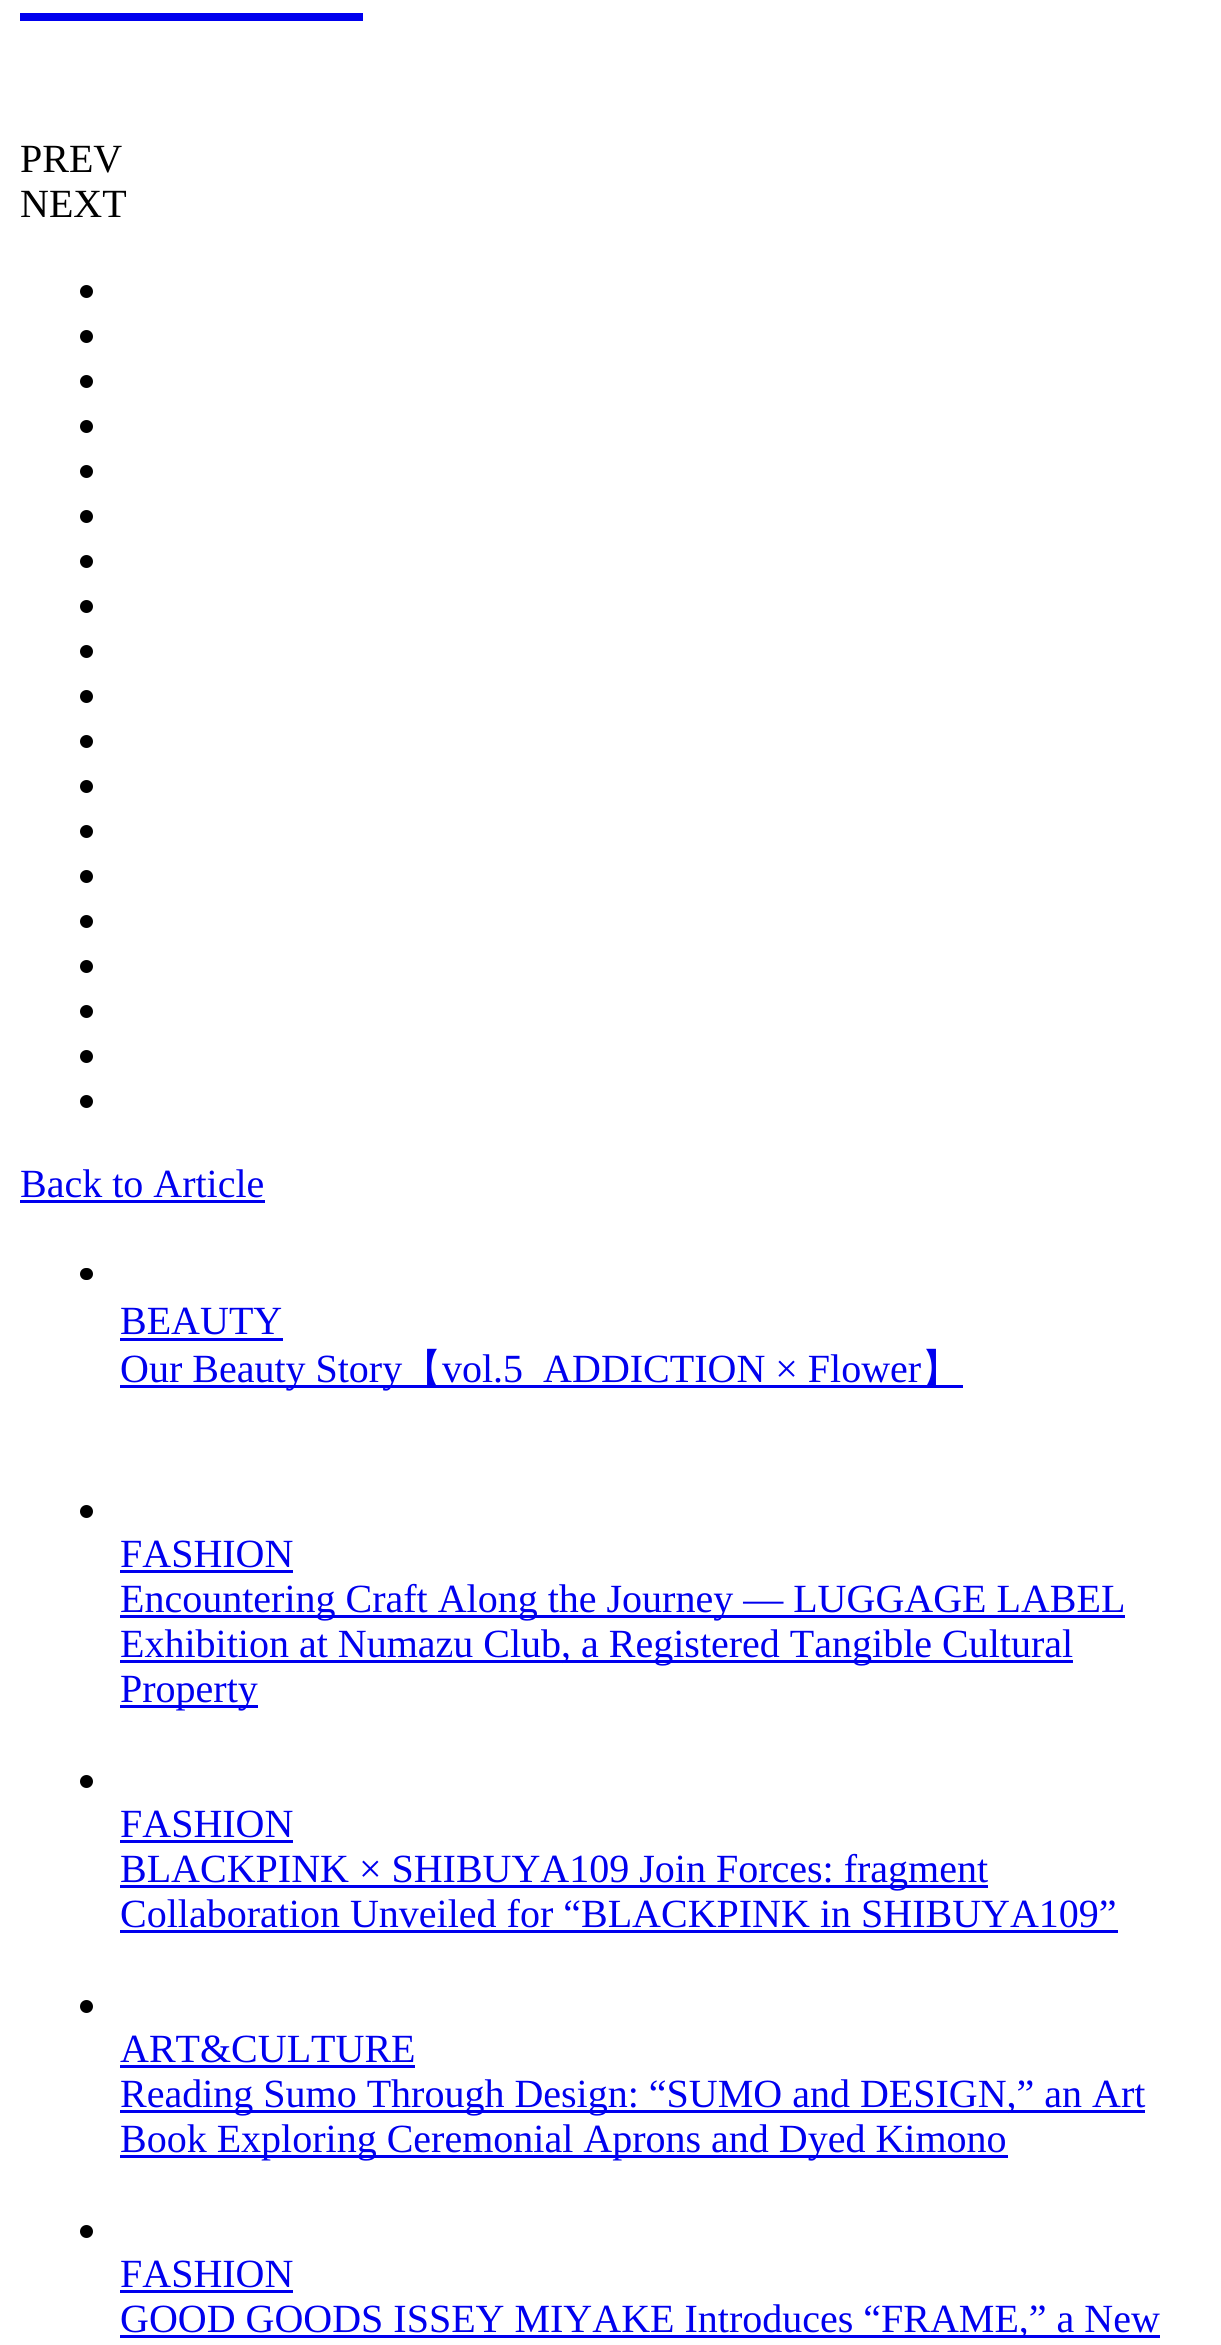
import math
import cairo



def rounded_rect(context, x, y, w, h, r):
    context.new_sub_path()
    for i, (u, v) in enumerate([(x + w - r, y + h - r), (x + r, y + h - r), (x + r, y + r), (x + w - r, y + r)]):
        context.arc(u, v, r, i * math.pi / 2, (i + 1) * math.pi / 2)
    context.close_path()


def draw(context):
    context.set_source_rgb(1, 1, 1)
    context.paint()
    context.set_source_rgb(0, 0, 238 / 255)
    context.rectangle(20, 13, 343, 8)
    context.fill()
    context.set_source_rgb(0, 0, 0)
    context.arc(86.5, 291.5, 6.5, 0, 2 * math.pi)
    context.fill()
    context.arc(86.5, 336.5, 6.5, 0, 2 * math.pi)
    context.fill()
    context.arc(86.5, 381.5, 6.5, 0, 2 * math.pi)
    context.fill()
    context.arc(86.5, 426.5, 6.5, 0, 2 * math.pi)
    context.fill()
    context.arc(86.5, 471.5, 6.5, 0, 2 * math.pi)
    context.fill()
    context.arc(86.5, 516.5, 6.5, 0, 2 * math.pi)
    context.fill()
    context.arc(86.5, 561.5, 6.5, 0, 2 * math.pi)
    context.fill()
    context.arc(86.5, 606.5, 6.5, 0, 2 * math.pi)
    context.fill()
    context.arc(86.5, 651.5, 6.5, 0, 2 * math.pi)
    context.fill()
    context.arc(86.5, 696.5, 6.5, 0, 2 * math.pi)
    context.fill()
    context.arc(86.5, 741.5, 6.5, 0, 2 * math.pi)
    context.fill()
    context.arc(86.5, 786.5, 6.5, 0, 2 * math.pi)
    context.fill()
    context.arc(86.5, 831.5, 6.5, 0, 2 * math.pi)
    context.fill()
    context.arc(86.5, 876.5, 6.5, 0, 2 * math.pi)
    context.fill()
    context.arc(86.5, 921.5, 6.5, 0, 2 * math.pi)
    context.fill()
    context.arc(86.5, 966.5, 6.5, 0, 2 * math.pi)
    context.fill()
    context.arc(86.5, 1011.5, 6.5, 0, 2 * math.pi)
    context.fill()
    context.arc(86.5, 1056.5, 6.5, 0, 2 * math.pi)
    context.fill()
    context.arc(86.5, 1101.5, 6.5, 0, 2 * math.pi)
    context.fill()
    context.set_source_rgb(0, 0, 238 / 255)
    context.rectangle(20, 1200, 245, 3)
    context.fill()
    context.set_source_rgb(0, 0, 0)
    rounded_rect(context, 80, 1268, 13, 12, 6)
    context.fill()
    context.set_source_rgb(0, 0, 238 / 255)
    context.rectangle(120, 1338, 163, 3)
    context.fill()
    context.rectangle(120, 1385, 843, 3)
    context.fill()
    context.set_source_rgb(0, 0, 0)
    context.arc(86.5, 1511.5, 6.5, 0, 2 * math.pi)
    context.fill()
    context.set_source_rgb(0, 0, 238 / 255)
    context.rectangle(120, 1570, 173, 3)
    context.fill()
    context.rectangle(120, 1615, 1005, 3)
    context.fill()
    context.rectangle(120, 1660, 953, 3)
    context.fill()
    context.rectangle(120, 1705, 138, 3)
    context.fill()
    context.set_source_rgb(0, 0, 0)
    context.arc(86.5, 1781.5, 6.5, 0, 2 * math.pi)
    context.fill()
    context.set_source_rgb(0, 0, 238 / 255)
    context.rectangle(120, 1840, 173, 3)
    context.fill()
    context.rectangle(120, 1885, 868, 3)
    context.fill()
    context.rectangle(120, 1930, 998, 3)
    context.fill()
    context.set_source_rgb(0, 0, 0)
    context.arc(86.5, 2006.5, 6.5, 0, 2 * math.pi)
    context.fill()
    context.set_source_rgb(0, 0, 238 / 255)
    context.rectangle(120, 2065, 295, 3)
    context.fill()
    context.rectangle(120, 2110, 1025, 3)
    context.fill()
    context.rectangle(120, 2155, 888, 3)
    context.fill()
    context.set_source_rgb(0, 0, 0)
    context.arc(86.5, 2231.5, 6.5, 0, 2 * math.pi)
    context.fill()
    context.set_source_rgb(0, 0, 238 / 255)
    context.rectangle(120, 2290, 173, 3)
    context.fill()
    context.rectangle(120, 2335, 1040, 3)
    context.fill()
    context.select_font_face("Liberation Serif")
    context.set_font_size(40)
    context.set_source_rgb(0, 0, 0)
    context.move_to(20, 172)
    context.show_text("PREV")
    context.move_to(20, 217)
    context.show_text("NEXT")
    context.set_source_rgb(0, 0, 238 / 255)
    context.move_to(20, 1197)
    context.show_text("Back to Article")
    context.move_to(120, 1334)
    context.show_text("BEAUTY")
    context.move_to(120, 1382)
    context.show_text("Our Beauty Story")
    context.select_font_face("WenQuanYi Zen Hei Medium")
    context.move_to(402, 1382)
    context.show_text("【")
    context.select_font_face("Liberation Serif")
    context.move_to(442, 1382)
    context.show_text("vol.5_ADDICTION × Flower")
    context.select_font_face("WenQuanYi Zen Hei Medium")
    context.move_to(921, 1382)
    context.show_text("】")
    context.select_font_face("Liberation Serif")
    context.move_to(120, 1567)
    context.show_text("FASHION")
    context.move_to(120, 1612)
    context.show_text("Encountering Craft Along the Journey — LUGGAGE LABEL")
    context.move_to(120, 1657)
    context.show_text("Exhibition at Numazu Club, a Registered Tangible Cultural")
    context.move_to(120, 1702)
    context.show_text("Property")
    context.move_to(120, 1837)
    context.show_text("FASHION")
    context.move_to(120, 1882)
    context.show_text("BLACKPINK × SHIBUYA109 Join Forces: fragment")
    context.move_to(120, 1927)
    context.show_text("Collaboration Unveiled for “BLACKPINK in SHIBUYA109”")
    context.move_to(120, 2062)
    context.show_text("ART&CULTURE")
    context.move_to(120, 2107)
    context.show_text("Reading Sumo Through Design: “SUMO and DESIGN,” an Art")
    context.move_to(120, 2152)
    context.show_text("Book Exploring Ceremonial Aprons and Dyed Kimono")
    context.move_to(120, 2287)
    context.show_text("FASHION")
    context.move_to(120, 2332)
    context.show_text("GOOD GOODS ISSEY MIYAKE Introduces “FRAME,” a New")


surface = cairo.ImageSurface(cairo.Format.RGB24, 1221, 2345)
context = cairo.Context(surface)
options = cairo.FontOptions()
options.set_hint_metrics(cairo.HintMetrics.OFF)
options.set_hint_style(cairo.HintStyle.NONE)
context.set_font_options(options)
context.set_miter_limit(4)
draw(context)
surface.write_to_png("out.png")
